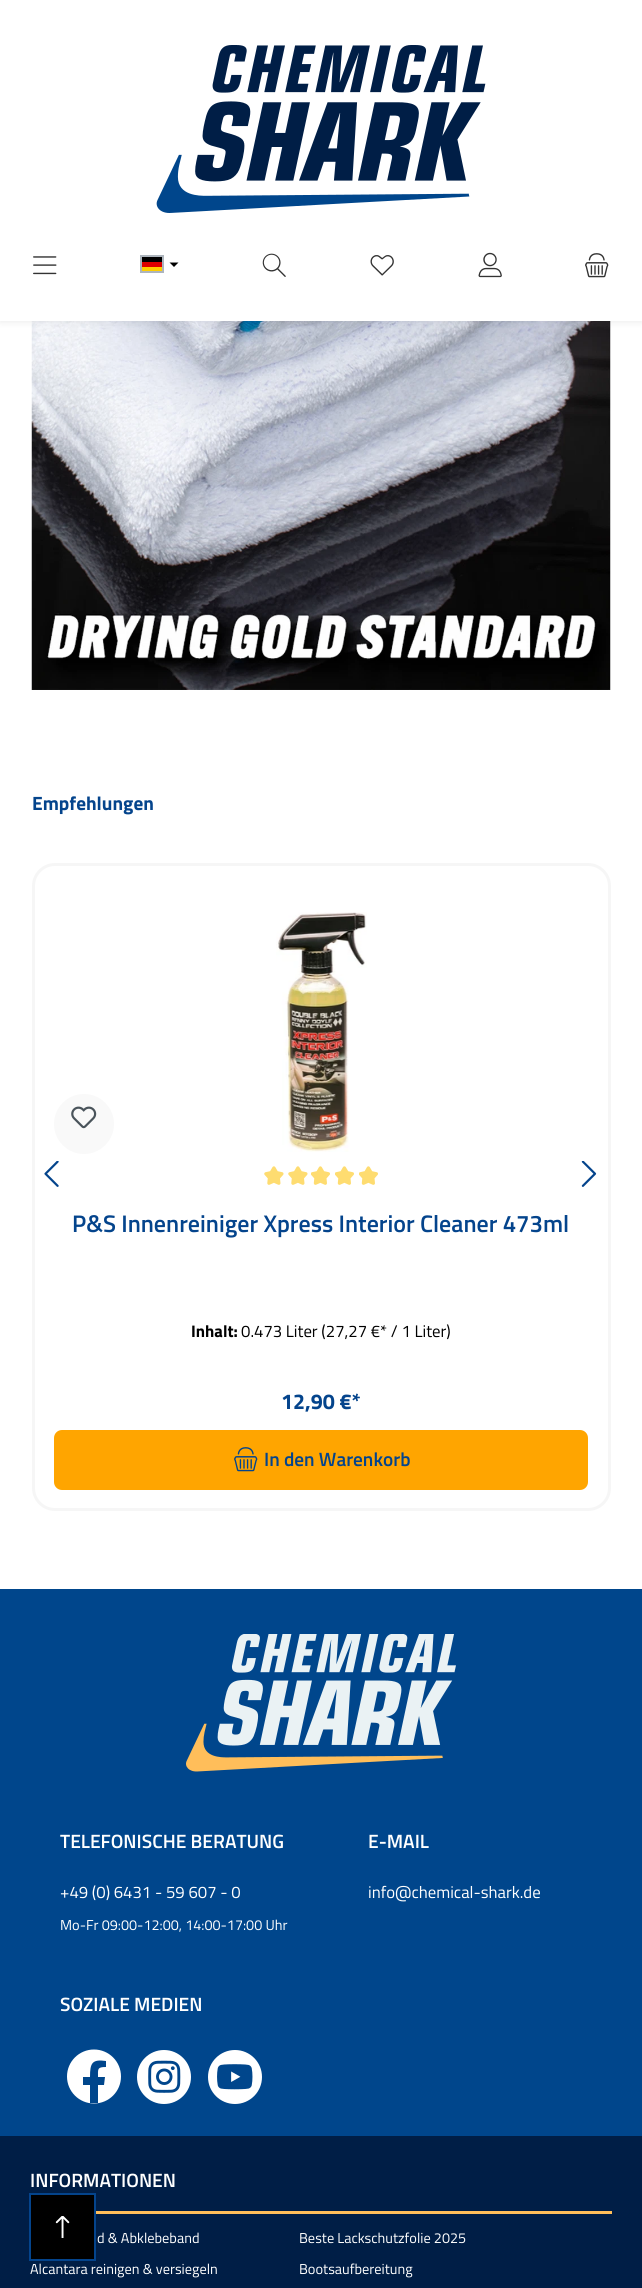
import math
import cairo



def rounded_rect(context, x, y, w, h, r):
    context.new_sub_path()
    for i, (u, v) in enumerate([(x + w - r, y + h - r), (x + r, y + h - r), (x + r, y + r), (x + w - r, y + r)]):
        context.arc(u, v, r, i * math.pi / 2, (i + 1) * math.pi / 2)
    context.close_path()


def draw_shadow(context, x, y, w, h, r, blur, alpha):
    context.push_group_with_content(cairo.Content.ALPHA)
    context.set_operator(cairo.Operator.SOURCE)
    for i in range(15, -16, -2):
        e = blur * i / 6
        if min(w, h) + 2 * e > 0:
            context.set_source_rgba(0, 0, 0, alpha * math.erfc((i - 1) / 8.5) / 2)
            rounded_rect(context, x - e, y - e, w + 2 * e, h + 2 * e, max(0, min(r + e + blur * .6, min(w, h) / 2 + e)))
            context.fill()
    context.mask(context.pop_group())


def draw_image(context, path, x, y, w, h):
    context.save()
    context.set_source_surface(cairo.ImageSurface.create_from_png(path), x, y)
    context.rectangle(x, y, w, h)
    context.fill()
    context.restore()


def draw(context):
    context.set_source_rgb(1, 1, 1)
    context.paint()
    draw_image(context, "images/7.png", 31, 321, 580, 369)
    context.set_source_rgb(0, 0, 0)
    draw_shadow(context, 0, 0, 642, 321, 0, 4, 0.1)
    context.set_source_rgb(1, 1, 1)
    context.rectangle(0, 0, 642, 321)
    context.fill()
    draw_image(context, "images/1.png", 156, 45, 330, 168)
    draw_image(context, "images/2.png", 33, 256, 24, 19)
    context.set_source_rgb(1, 206 / 255, 0)
    context.rectangle(141, 267, 21, 4)
    context.fill()
    context.set_source_rgb(0, 0, 0)
    context.rectangle(141, 257, 21, 5)
    context.fill()
    context.set_source_rgb(221 / 255, 0, 0)
    context.rectangle(141, 262, 21, 5)
    context.fill()
    context.rectangle(141, 256, 22, 16)
    context.set_source_rgb(173 / 255, 181 / 255, 189 / 255)
    context.stroke()
    context.set_source_rgb(0, 0, 0)
    context.new_path()
    context.move_to(169.5, 262.5)
    context.line_to(178.5, 262.5)
    context.line_to(174, 267)
    context.close_path()
    context.fill()
    draw_image(context, "images/3.png", 262, 253, 24, 24)
    draw_image(context, "images/4.png", 370, 255, 24, 21)
    draw_image(context, "images/5.png", 478, 252, 24, 26)
    draw_image(context, "images/6.png", 585, 253, 24, 25)
    rounded_rect(context, 33.5, 864.5, 576, 645, 21.5)
    context.set_source_rgb(246 / 255, 246 / 255, 246 / 255)
    context.set_line_width(3)
    context.stroke()
    draw_image(context, "images/8.png", 44, 1161, 15, 26)
    draw_image(context, "images/9.png", 581, 1161, 16, 26)
    context.set_source_rgb(249 / 255, 249 / 255, 249 / 255)
    context.arc(84, 1124, 30, 0, 2 * math.pi)
    context.fill()
    draw_image(context, "images/10.png", 71, 1106, 26, 23)
    draw_image(context, "images/11.png", 276, 912, 91, 240)
    draw_image(context, "images/12.png", 264, 1166, 20, 19)
    draw_image(context, "images/12.png", 288, 1166, 20, 19)
    draw_image(context, "images/13.png", 311, 1166, 19, 19)
    draw_image(context, "images/13.png", 335, 1166, 19, 19)
    draw_image(context, "images/13.png", 359, 1166, 19, 19)
    context.set_source_rgb(1, 165 / 255, 0)
    rounded_rect(context, 55, 1431, 532, 58, 7)
    context.fill_preserve()
    context.set_line_width(2)
    context.stroke()
    draw_image(context, "images/14.png", 234, 1447, 24, 25)
    context.set_source_rgb(0, 30 / 255, 70 / 255)
    context.rectangle(0, 2136, 642, 152)
    context.fill()
    context.set_source_rgb(0, 70 / 255, 140 / 255)
    context.rectangle(0, 1589, 642, 547)
    context.fill()
    draw_image(context, "images/15.png", 186, 1634, 270, 138)
    context.set_source_rgb(1, 1, 1)
    context.arc(94, 2076.5, 27, 0, 2 * math.pi)
    context.fill()
    context.set_source_rgb(0, 70 / 255, 140 / 255)
    context.new_path()
    context.move_to(104, 2085)
    context.line_to(105, 2077)
    context.line_to(98, 2077)
    context.curve_to(98, 2069, 97, 2067, 106, 2067)
    context.line_to(106, 2061)
    context.curve_to(92, 2059, 90, 2063, 90, 2077)
    context.line_to(83, 2077)
    context.line_to(83, 2085)
    context.line_to(90, 2085)
    context.line_to(90, 2103)
    context.line_to(98, 2103)
    context.line_to(98, 2085)
    context.close_path()
    context.fill()
    draw_image(context, "images/16.png", 137, 2050, 54, 54)
    draw_image(context, "images/17.png", 208, 2050, 54, 54)
    context.set_source_rgb(1, 190 / 255, 90 / 255)
    context.rectangle(96, 2211, 516, 3)
    context.fill()
    context.set_source_rgb(0, 0, 0)
    context.rectangle(30, 2194, 65, 66)
    context.fill_preserve()
    context.set_source_rgb(4 / 255, 68 / 255, 140 / 255)
    context.stroke()
    draw_image(context, "images/18.png", 55, 2216, 15, 22)
    context.select_font_face("Titillium Web", cairo.FontSlant.NORMAL, cairo.FontWeight.BOLD)
    context.set_font_size(19.25)
    context.move_to(32, 810)
    context.show_text("Empfehlungen")
    context.select_font_face("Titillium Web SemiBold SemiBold")
    context.set_font_size(24)
    context.move_to(72, 1232)
    context.show_text("P&S Innenreiniger Xpress Interior Cleaner 473ml")
    context.select_font_face("Titillium Web", cairo.FontSlant.NORMAL, cairo.FontWeight.BOLD)
    context.set_font_size(16.75)
    context.set_source_rgb(0, 0, 0)
    context.move_to(191, 1337)
    context.show_text("Inhalt:")
    context.select_font_face("Titillium Web")
    context.move_to(241, 1337)
    context.show_text("0.473 Liter (27,27 €* / 1 Liter)")
    context.select_font_face("Titillium Web", cairo.FontSlant.NORMAL, cairo.FontWeight.BOLD)
    context.set_font_size(21.5)
    context.set_source_rgb(4 / 255, 68 / 255, 140 / 255)
    context.move_to(281, 1409)
    context.show_text("12,90 €*")
    context.select_font_face("Titillium Web SemiBold SemiBold")
    context.set_font_size(19.25)
    context.move_to(264, 1466)
    context.show_text("In den Warenkorb")
    context.set_source_rgb(1, 1, 1)
    context.move_to(60, 1848)
    context.show_text("TELEFONISCHE BERATUNG")
    context.select_font_face("Titillium Web")
    context.set_font_size(16.75)
    context.move_to(60, 1898)
    context.show_text("+49 (0) 6431 - 59 607 - 0")
    context.set_font_size(14.4)
    context.move_to(60, 1930)
    context.show_text("Mo-Fr 09:00-12:00, 14:00-17:00 Uhr")
    context.select_font_face("Titillium Web SemiBold SemiBold")
    context.set_font_size(19.25)
    context.move_to(368, 1848)
    context.show_text("E-MAIL")
    context.select_font_face("Titillium Web")
    context.set_font_size(16.75)
    context.move_to(368, 1898)
    context.show_text("info@chemical-shark.de")
    context.select_font_face("Titillium Web SemiBold SemiBold")
    context.set_font_size(19.25)
    context.move_to(60, 2011)
    context.show_text("SOZIALE MEDIEN")
    context.move_to(30, 2187)
    context.show_text("INFORMATIONEN")
    context.select_font_face("Titillium Web")
    context.set_font_size(14.4)
    context.move_to(97, 2243)
    context.show_text("d & Abklebeband")
    context.move_to(299, 2243)
    context.show_text("Beste Lackschutzfolie 2025")
    context.move_to(30, 2274)
    context.show_text("Alcantara reinigen & versiegeln")
    context.move_to(299, 2274)
    context.show_text("Bootsaufbereitung")


surface = cairo.ImageSurface(cairo.Format.RGB24, 642, 2288)
context = cairo.Context(surface)
options = cairo.FontOptions()
options.set_hint_metrics(cairo.HintMetrics.OFF)
options.set_hint_style(cairo.HintStyle.NONE)
context.set_font_options(options)
context.set_miter_limit(4)
draw(context)
surface.write_to_png("out.png")
